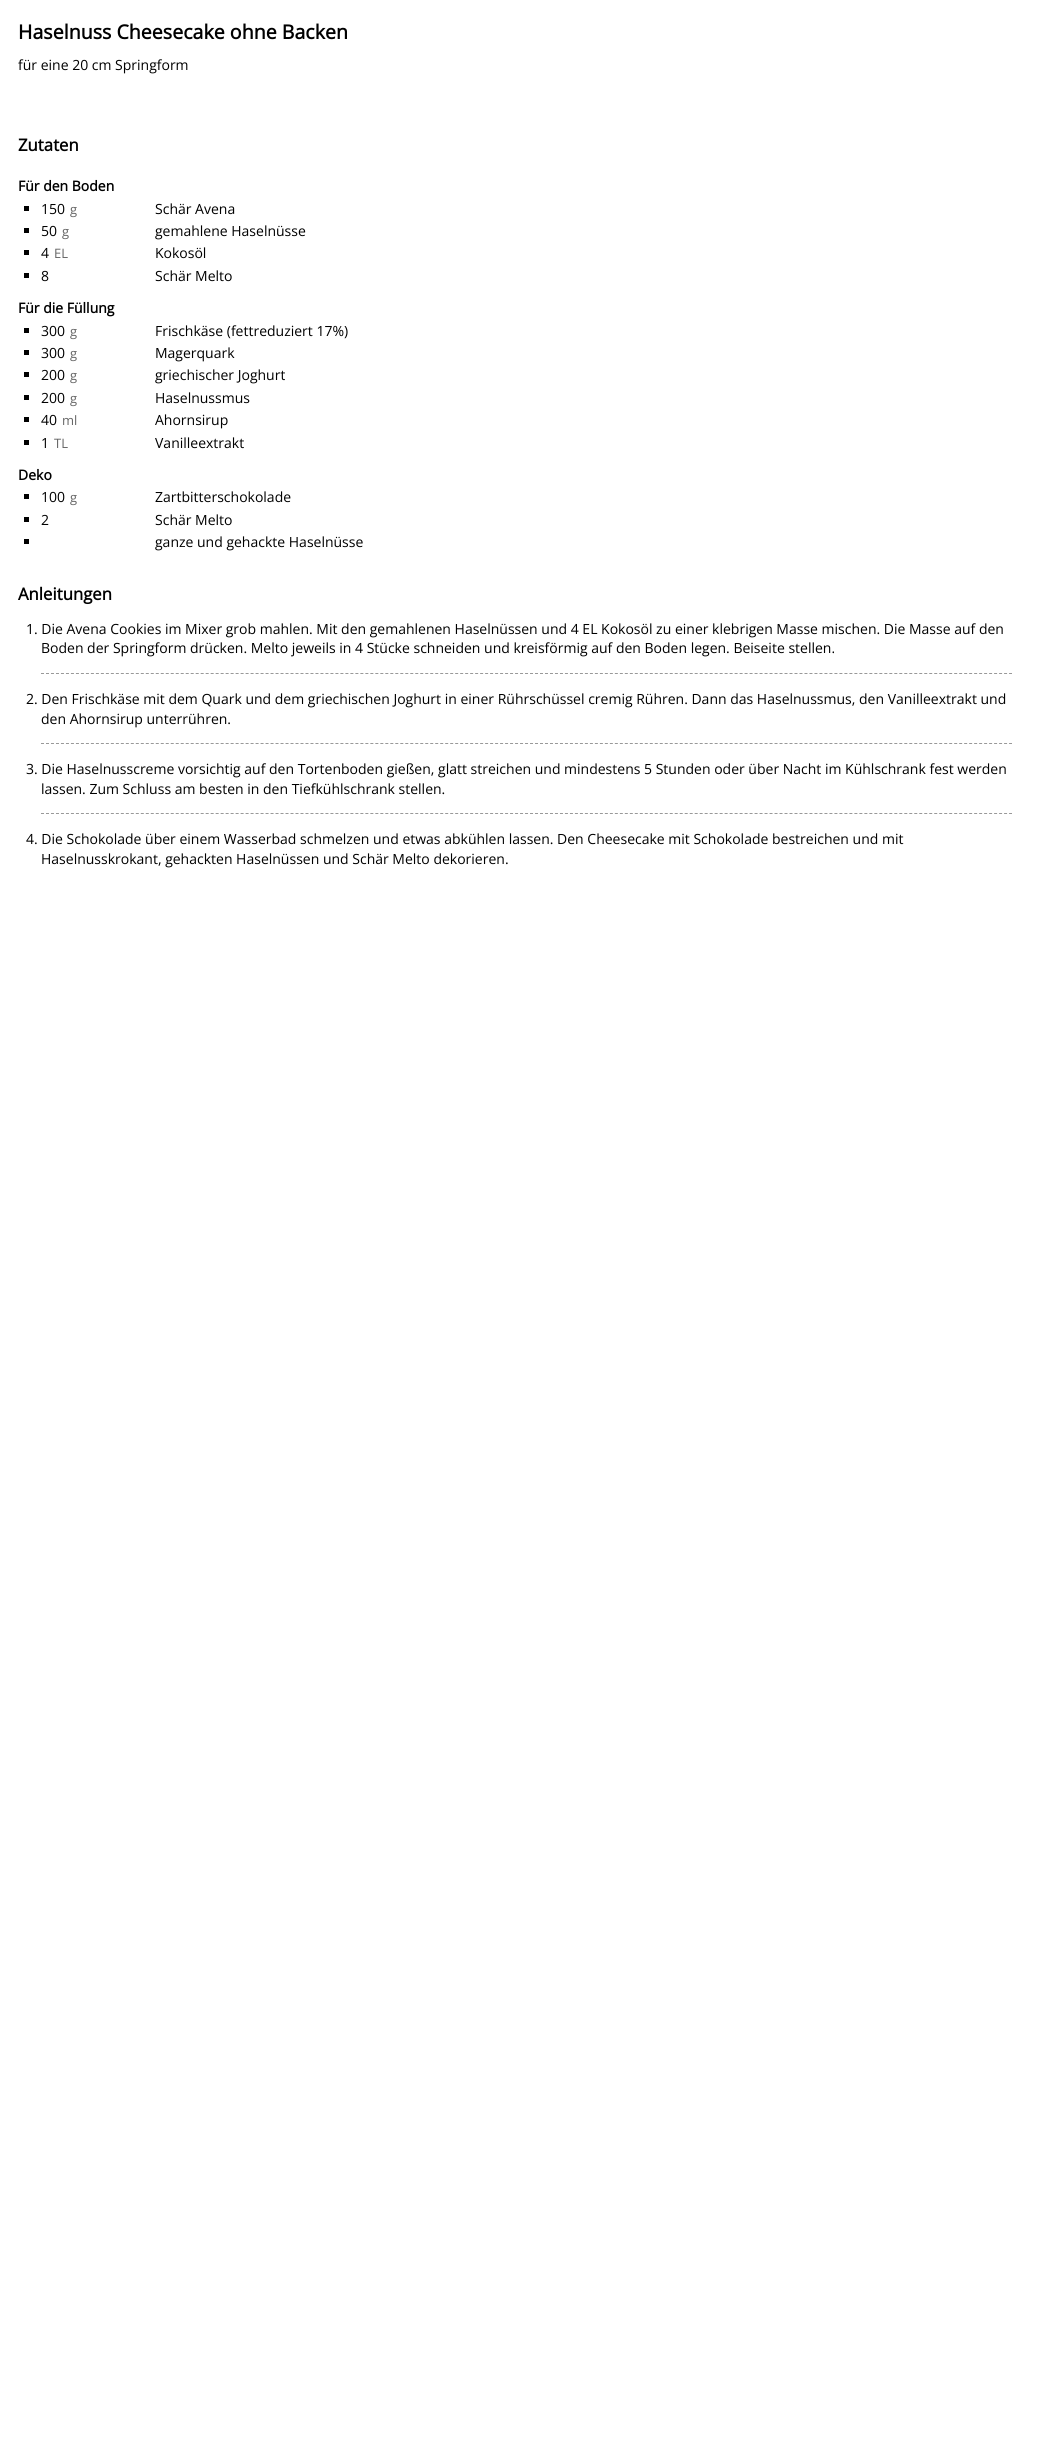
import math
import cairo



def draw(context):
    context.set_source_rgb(1, 1, 1)
    context.paint()
    context.set_source_rgb(0, 0, 0)
    context.rectangle(24, 206, 5, 5)
    context.fill()
    context.rectangle(24, 228, 5, 5)
    context.fill()
    context.rectangle(24, 250, 5, 5)
    context.fill()
    context.rectangle(24, 273, 5, 5)
    context.fill()
    context.rectangle(24, 328, 5, 5)
    context.fill()
    context.rectangle(24, 350, 5, 5)
    context.fill()
    context.rectangle(24, 372, 5, 5)
    context.fill()
    context.rectangle(24, 395, 5, 5)
    context.fill()
    context.rectangle(24, 417, 5, 5)
    context.fill()
    context.rectangle(24, 440, 5, 5)
    context.fill()
    context.rectangle(24, 494, 5, 5)
    context.fill()
    context.rectangle(24, 517, 5, 5)
    context.fill()
    context.rectangle(24, 539, 5, 5)
    context.fill()
    context.new_path()
    context.move_to(41, 673.5)
    context.line_to(1012, 673.5)
    context.set_source_rgb(153 / 255, 153 / 255, 153 / 255)
    context.set_line_width(1)
    context.set_dash([3, 1.99])
    context.stroke()
    context.new_path()
    context.move_to(41, 743.5)
    context.line_to(1012, 743.5)
    context.stroke()
    context.new_path()
    context.move_to(41, 813.5)
    context.line_to(1012, 813.5)
    context.stroke()
    context.select_font_face("Open Sans", cairo.FontSlant.NORMAL, cairo.FontWeight.BOLD)
    context.set_font_size(19.6)
    context.set_source_rgb(0, 0, 0)
    context.move_to(18, 39)
    context.show_text("Haselnuss Cheesecake ohne Backen")
    context.select_font_face("Open Sans")
    context.set_font_size(14)
    context.move_to(18, 70)
    context.show_text("für eine 20 cm Springform")
    context.select_font_face("Open Sans", cairo.FontSlant.NORMAL, cairo.FontWeight.BOLD)
    context.set_font_size(16.75)
    context.move_to(18, 151)
    context.show_text("Zutaten")
    context.set_font_size(14)
    context.move_to(18, 191)
    context.show_text("Für den Boden")
    context.select_font_face("Open Sans")
    context.move_to(41, 214)
    context.show_text("150")
    context.set_font_size(13)
    context.set_source_rgb(102 / 255, 102 / 255, 102 / 255)
    context.move_to(70, 214)
    context.show_text("g")
    context.set_font_size(14)
    context.set_source_rgb(0, 0, 0)
    context.move_to(155, 214)
    context.show_text("Schär Avena")
    context.move_to(41, 236)
    context.show_text("50")
    context.set_font_size(13)
    context.set_source_rgb(102 / 255, 102 / 255, 102 / 255)
    context.move_to(62, 236)
    context.show_text("g")
    context.set_font_size(14)
    context.set_source_rgb(0, 0, 0)
    context.move_to(155, 236)
    context.show_text("gemahlene Haselnüsse")
    context.move_to(41, 258)
    context.show_text("4")
    context.set_font_size(13)
    context.set_source_rgb(102 / 255, 102 / 255, 102 / 255)
    context.move_to(54, 258)
    context.show_text("EL")
    context.set_font_size(14)
    context.set_source_rgb(0, 0, 0)
    context.move_to(155, 258)
    context.show_text("Kokosöl")
    context.move_to(41, 281)
    context.show_text("8")
    context.move_to(155, 281)
    context.show_text("Schär Melto")
    context.select_font_face("Open Sans", cairo.FontSlant.NORMAL, cairo.FontWeight.BOLD)
    context.move_to(18, 313)
    context.show_text("Für die Füllung")
    context.select_font_face("Open Sans")
    context.move_to(41, 336)
    context.show_text("300")
    context.set_font_size(13)
    context.set_source_rgb(102 / 255, 102 / 255, 102 / 255)
    context.move_to(70, 336)
    context.show_text("g")
    context.set_font_size(14)
    context.set_source_rgb(0, 0, 0)
    context.move_to(155, 336)
    context.show_text("Frischkäse (fettreduziert 17%)")
    context.move_to(41, 358)
    context.show_text("300")
    context.set_font_size(13)
    context.set_source_rgb(102 / 255, 102 / 255, 102 / 255)
    context.move_to(70, 358)
    context.show_text("g")
    context.set_font_size(14)
    context.set_source_rgb(0, 0, 0)
    context.move_to(155, 358)
    context.show_text("Magerquark")
    context.move_to(41, 380)
    context.show_text("200")
    context.set_font_size(13)
    context.set_source_rgb(102 / 255, 102 / 255, 102 / 255)
    context.move_to(70, 380)
    context.show_text("g")
    context.set_font_size(14)
    context.set_source_rgb(0, 0, 0)
    context.move_to(155, 380)
    context.show_text("griechischer Joghurt")
    context.move_to(41, 403)
    context.show_text("200")
    context.set_font_size(13)
    context.set_source_rgb(102 / 255, 102 / 255, 102 / 255)
    context.move_to(70, 403)
    context.show_text("g")
    context.set_font_size(14)
    context.set_source_rgb(0, 0, 0)
    context.move_to(155, 403)
    context.show_text("Haselnussmus")
    context.move_to(41, 425)
    context.show_text("40")
    context.set_font_size(13)
    context.set_source_rgb(102 / 255, 102 / 255, 102 / 255)
    context.move_to(62, 425)
    context.show_text("ml")
    context.set_font_size(14)
    context.set_source_rgb(0, 0, 0)
    context.move_to(155, 425)
    context.show_text("Ahornsirup")
    context.move_to(41, 448)
    context.show_text("1")
    context.set_font_size(13)
    context.set_source_rgb(102 / 255, 102 / 255, 102 / 255)
    context.move_to(54, 448)
    context.show_text("TL")
    context.set_font_size(14)
    context.set_source_rgb(0, 0, 0)
    context.move_to(155, 448)
    context.show_text("Vanilleextrakt")
    context.select_font_face("Open Sans", cairo.FontSlant.NORMAL, cairo.FontWeight.BOLD)
    context.move_to(18, 480)
    context.show_text("Deko")
    context.select_font_face("Open Sans")
    context.move_to(41, 502)
    context.show_text("100")
    context.set_font_size(13)
    context.set_source_rgb(102 / 255, 102 / 255, 102 / 255)
    context.move_to(70, 502)
    context.show_text("g")
    context.set_font_size(14)
    context.set_source_rgb(0, 0, 0)
    context.move_to(155, 502)
    context.show_text("Zartbitterschokolade")
    context.move_to(41, 525)
    context.show_text("2")
    context.move_to(155, 525)
    context.show_text("Schär Melto")
    context.move_to(155, 547)
    context.show_text("ganze und gehackte Haselnüsse")
    context.select_font_face("Open Sans", cairo.FontSlant.NORMAL, cairo.FontWeight.BOLD)
    context.set_font_size(16.75)
    context.move_to(18, 600)
    context.show_text("Anleitungen")
    context.select_font_face("Open Sans")
    context.set_font_size(14)
    context.move_to(26, 634)
    context.show_text("1. Die Avena Cookies im Mixer grob mahlen. Mit den gemahlenen Haselnüssen und 4 EL Kokosöl zu einer klebrigen Masse mischen. Die Masse auf den")
    context.move_to(41, 653)
    context.show_text("Boden der Springform drücken. Melto jeweils in 4 Stücke schneiden und kreisförmig auf den Boden legen. Beiseite stellen.")
    context.move_to(26, 704)
    context.show_text("2. Den Frischkäse mit dem Quark und dem griechischen Joghurt in einer Rührschüssel cremig Rühren. Dann das Haselnussmus, den Vanilleextrakt und")
    context.move_to(41, 724)
    context.show_text("den Ahornsirup unterrühren.")
    context.move_to(26, 774)
    context.show_text("3. Die Haselnusscreme vorsichtig auf den Tortenboden gießen, glatt streichen und mindestens 5 Stunden oder über Nacht im Kühlschrank fest werden")
    context.move_to(41, 794)
    context.show_text("lassen. Zum Schluss am besten in den Tiefkühlschrank stellen.")
    context.move_to(26, 844)
    context.show_text("4. Die Schokolade über einem Wasserbad schmelzen und etwas abkühlen lassen. Den Cheesecake mit Schokolade bestreichen und mit")
    context.move_to(41, 864)
    context.show_text("Haselnusskrokant, gehackten Haselnüssen und Schär Melto dekorieren.")


surface = cairo.ImageSurface(cairo.Format.RGB24, 1053, 2438)
context = cairo.Context(surface)
options = cairo.FontOptions()
options.set_hint_metrics(cairo.HintMetrics.OFF)
options.set_hint_style(cairo.HintStyle.NONE)
context.set_font_options(options)
context.set_miter_limit(4)
draw(context)
surface.write_to_png("out.png")
